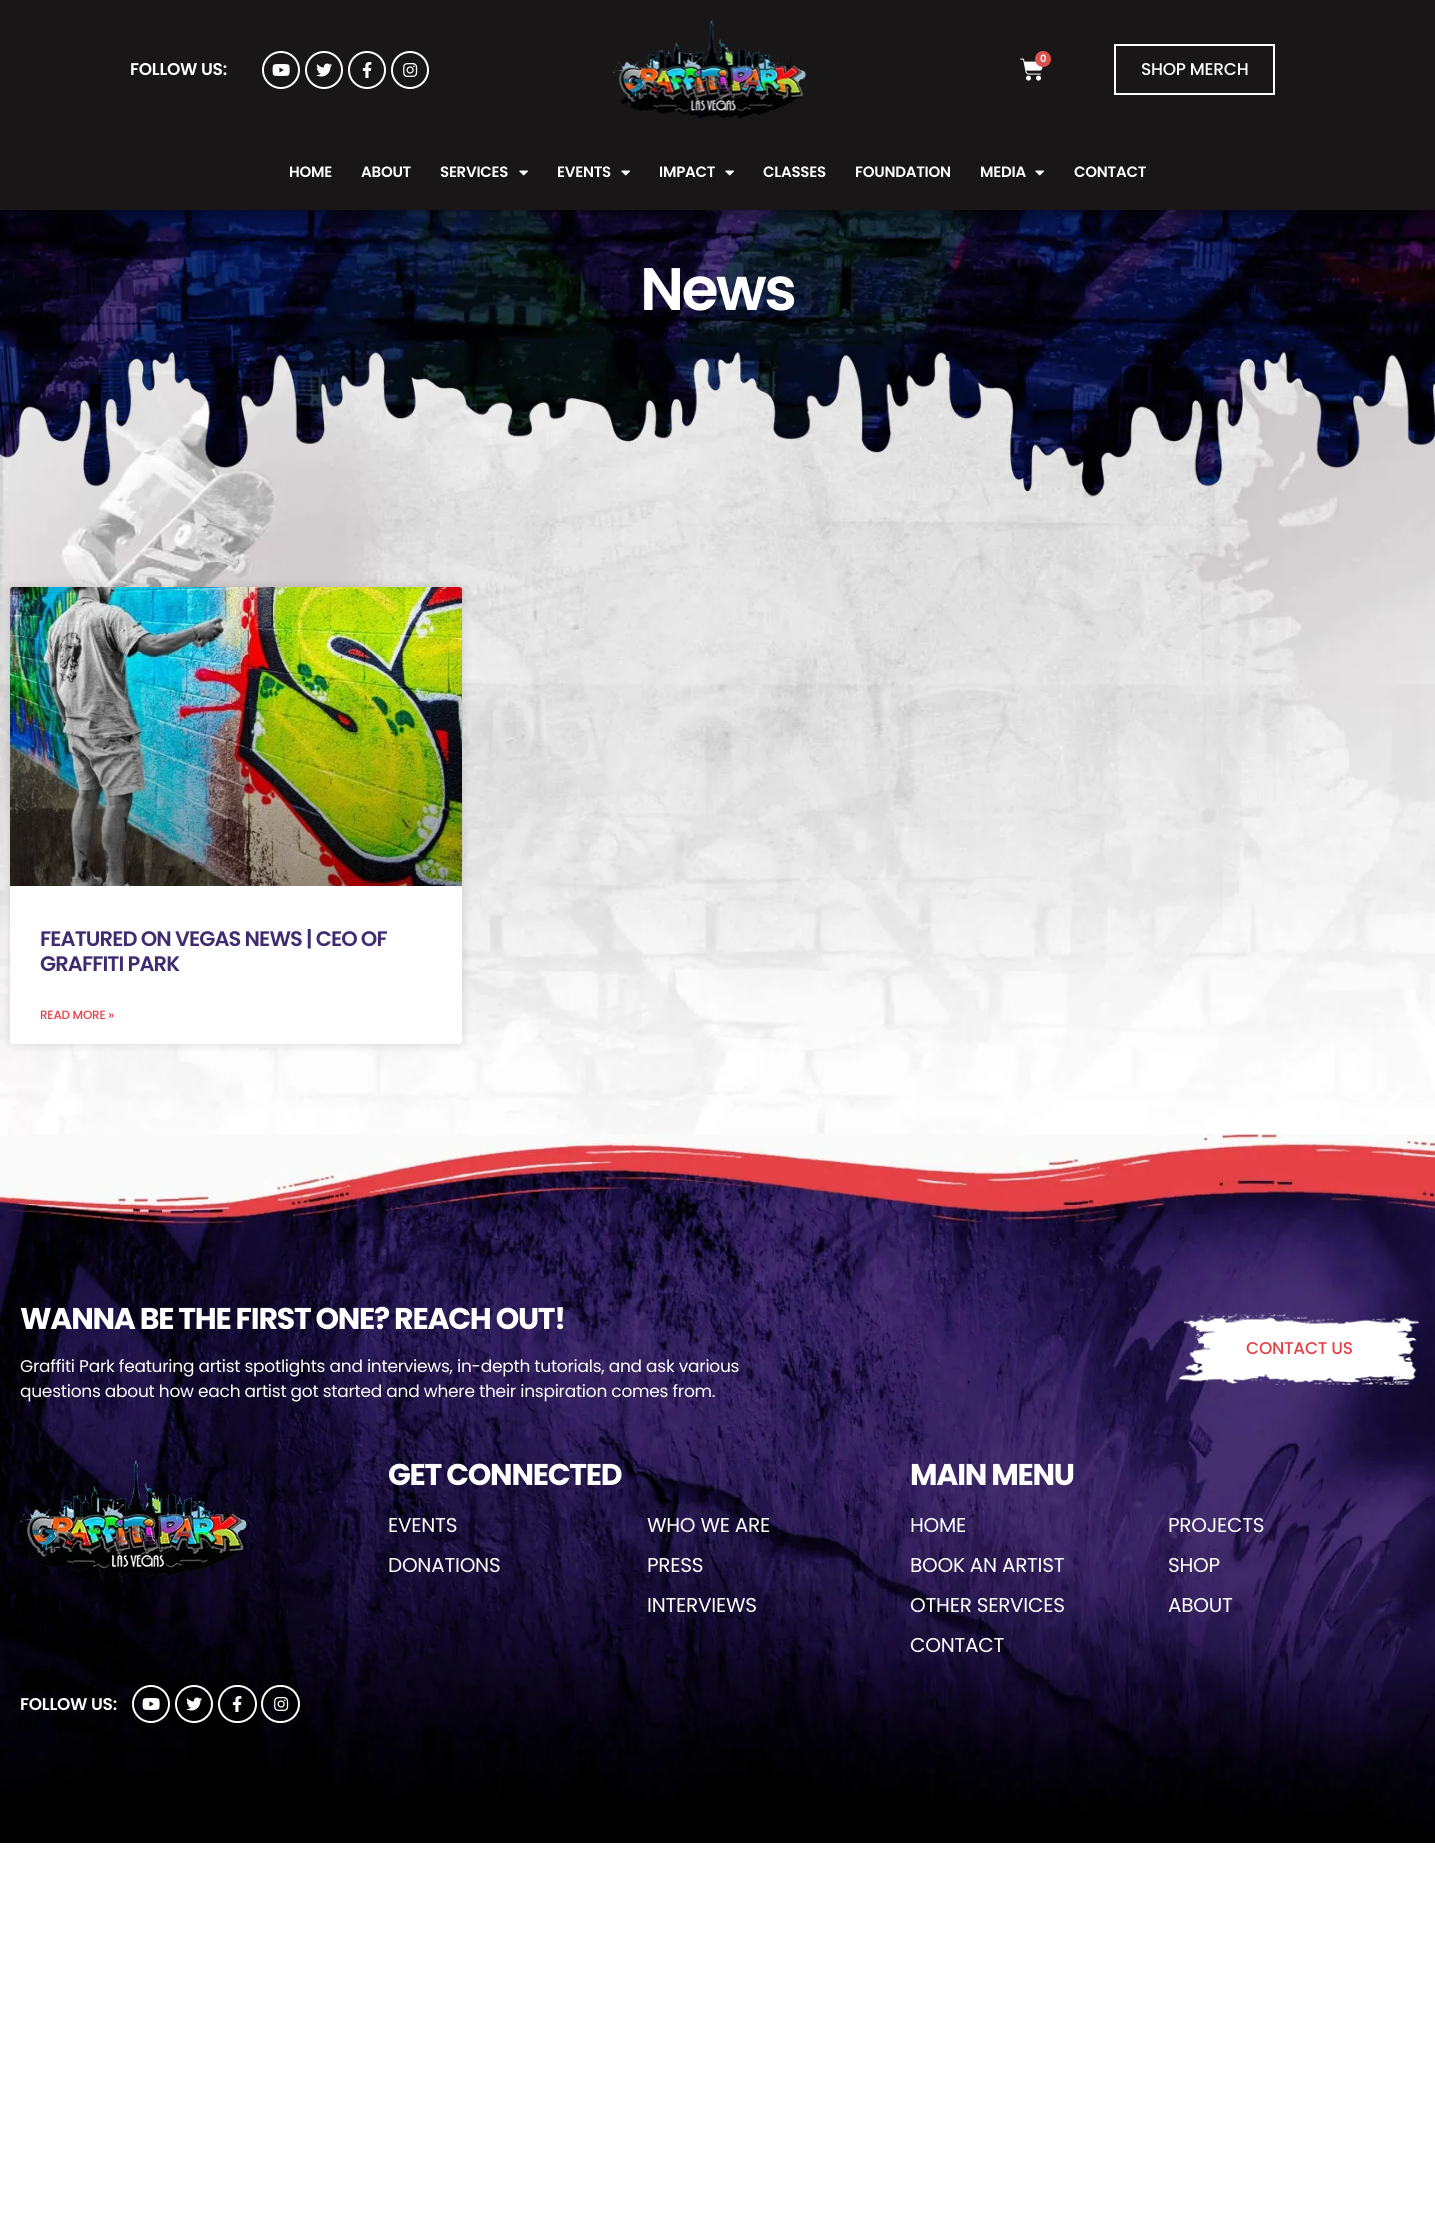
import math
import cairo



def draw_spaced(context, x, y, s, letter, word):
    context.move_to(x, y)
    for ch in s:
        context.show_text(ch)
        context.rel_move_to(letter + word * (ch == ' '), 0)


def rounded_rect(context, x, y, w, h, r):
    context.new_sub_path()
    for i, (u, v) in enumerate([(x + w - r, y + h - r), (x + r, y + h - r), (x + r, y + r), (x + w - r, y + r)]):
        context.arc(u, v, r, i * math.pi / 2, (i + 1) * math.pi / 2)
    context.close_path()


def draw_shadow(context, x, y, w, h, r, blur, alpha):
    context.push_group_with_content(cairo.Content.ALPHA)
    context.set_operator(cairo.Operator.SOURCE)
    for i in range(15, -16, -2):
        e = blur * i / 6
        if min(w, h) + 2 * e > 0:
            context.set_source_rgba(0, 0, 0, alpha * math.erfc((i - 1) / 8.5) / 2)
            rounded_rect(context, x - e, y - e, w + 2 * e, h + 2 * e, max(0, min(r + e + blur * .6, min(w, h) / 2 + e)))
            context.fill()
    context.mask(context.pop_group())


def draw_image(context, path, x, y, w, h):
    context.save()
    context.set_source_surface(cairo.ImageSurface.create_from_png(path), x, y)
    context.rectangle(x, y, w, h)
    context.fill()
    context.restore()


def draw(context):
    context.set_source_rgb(1, 1, 1)
    context.paint()
    draw_image(context, "images/1.png", 0, 210, 1435, 924)
    draw_image(context, "images/9.png", 0, 210, 1435, 287)
    context.set_source_rgb(0, 0, 0)
    draw_shadow(context, 0, 4, 1435, 210, 0, 6, 0.5)
    context.set_source_rgb(24 / 255, 22 / 255, 22 / 255)
    context.rectangle(0, 0, 1435, 210)
    context.fill()
    context.arc(281, 70, 18, 0, 2 * math.pi)
    context.set_source_rgb(1, 1, 1)
    context.stroke()
    draw_image(context, "images/2.png", 272, 64, 18, 12)
    context.arc(324, 70, 18, 0, 2 * math.pi)
    context.stroke()
    draw_image(context, "images/3.png", 316, 63, 16, 14)
    context.arc(367, 70, 18, 0, 2 * math.pi)
    context.stroke()
    draw_image(context, "images/4.png", 362, 62, 10, 16)
    context.arc(410, 70, 18, 0, 2 * math.pi)
    context.stroke()
    draw_image(context, "images/5.png", 403, 63, 15, 14)
    draw_image(context, "images/6.png", 613, 20, 194, 99)
    draw_image(context, "images/7.png", 1020, 58, 23, 23)
    context.set_source_rgb(217 / 255, 83 / 255, 79 / 255)
    context.arc(1043, 59, 8, 0, 2 * math.pi)
    context.fill()
    context.rectangle(1115, 45, 159, 49)
    context.set_source_rgb(1, 1, 1)
    context.stroke()
    draw_image(context, "images/8.png", 519, 170, 9, 6)
    draw_image(context, "images/8.png", 621, 170, 9, 6)
    draw_image(context, "images/8.png", 725, 170, 9, 6)
    draw_image(context, "images/8.png", 1035, 170, 9, 6)
    context.set_source_rgb(0, 0, 0)
    draw_shadow(context, 10, 587, 452, 457, 3, 5, 0.15)
    context.set_source_rgb(1, 1, 1)
    rounded_rect(context, 10, 587, 452, 457, 3)
    context.fill()
    draw_image(context, "images/10.png", 10, 587, 452, 299)
    gradient = cairo.LinearGradient(236, 886, 236, 587)
    gradient.add_color_stop_rgba(0, 0, 0, 0, 0.35)
    gradient.add_color_stop_rgba(0.75, 0, 0, 0, 0)
    context.set_source(gradient)
    context.rectangle(10, 676, 452, 210)
    context.fill()
    draw_image(context, "images/11.png", 0, 1134, 1435, 709)
    draw_image(context, "images/12.png", 1179, 1313, 240, 72)
    draw_image(context, "images/13.png", 20, 1460, 227, 117)
    context.arc(151, 1704, 18, 0, 2 * math.pi)
    context.set_source_rgb(1, 1, 1)
    context.stroke()
    draw_image(context, "images/14.png", 142, 1698, 18, 12)
    context.arc(194, 1704, 18, 0, 2 * math.pi)
    context.stroke()
    draw_image(context, "images/15.png", 186, 1697, 16, 14)
    rounded_rect(context, 219, 1686, 37, 36, 18)
    context.stroke()
    draw_image(context, "images/16.png", 232, 1696, 10, 16)
    rounded_rect(context, 262, 1686, 37, 36, 18)
    context.stroke()
    draw_image(context, "images/17.png", 274, 1697, 15, 14)
    context.select_font_face("Poppins SemiBold")
    context.set_font_size(17)
    draw_spaced(context, 130, 75, "FOLLOW US:", -0.25, 0)
    context.set_font_size(10)
    draw_spaced(context, 1040, 62, "0", -0.25, 0)
    context.select_font_face("Poppins Medium")
    context.set_font_size(17)
    draw_spaced(context, 1141, 75, "SHOP MERCH", -0.25, 0)
    context.select_font_face("Poppins SemiBold")
    context.set_font_size(15)
    draw_spaced(context, 289, 177, "HOME", -0.25, 0)
    draw_spaced(context, 361, 177, "ABOUT", -0.25, 0)
    draw_spaced(context, 440, 177, "SERVICES", -0.25, 0)
    draw_spaced(context, 557, 177, "EVENTS", -0.25, 0)
    draw_spaced(context, 659, 177, "IMPACT", -0.25, 0)
    draw_spaced(context, 763, 177, "CLASSES", -0.25, 0)
    draw_spaced(context, 855, 177, "FOUNDATION", -0.25, 0)
    draw_spaced(context, 980, 177, "MEDIA", -0.25, 0)
    draw_spaced(context, 1074, 177, "CONTACT", -0.25, 0)
    context.set_font_size(60)
    draw_spaced(context, 640, 310, "News", -2.5, 0)
    context.set_font_size(21)
    context.set_source_rgb(63 / 255, 43 / 255, 112 / 255)
    draw_spaced(context, 40, 946, "FEATURED ON VEGAS NEWS | CEO OF", -0.9, 0)
    draw_spaced(context, 40, 971, "GRAFFITI PARK", -0.9, 0)
    context.select_font_face("Poppins Medium")
    context.set_font_size(12)
    context.set_source_rgb(230 / 255, 65 / 255, 71 / 255)
    draw_spaced(context, 40, 1019, "READ MORE »", -0.25, 0)
    context.select_font_face("Poppins", cairo.FontSlant.NORMAL, cairo.FontWeight.BOLD)
    context.set_font_size(30)
    context.set_source_rgb(1, 1, 1)
    draw_spaced(context, 20, 1329, "WANNA BE THE FIRST ONE? REACH OUT!", -1.25, 0)
    context.select_font_face("Poppins")
    context.set_font_size(17)
    draw_spaced(context, 20, 1372, "Graffiti Park featuring artist spotlights and interviews, in-depth tutorials, and ask various", -0.25, 0)
    draw_spaced(context, 20, 1397, "questions about how each artist got started and where their inspiration comes from.", -0.25, 0)
    context.select_font_face("Poppins Medium")
    context.set_source_rgb(230 / 255, 65 / 255, 71 / 255)
    draw_spaced(context, 1246, 1354, "CONTACT US", -0.25, 0)
    context.select_font_face("Poppins", cairo.FontSlant.NORMAL, cairo.FontWeight.BOLD)
    context.set_font_size(30)
    context.set_source_rgb(1, 1, 1)
    draw_spaced(context, 388, 1485, "GET CONNECTED", -1.25, 0)
    context.select_font_face("Poppins")
    context.set_font_size(20)
    draw_spaced(context, 388, 1532, "EVENTS", -0.25, 0)
    draw_spaced(context, 647, 1532, "WHO WE ARE", -0.25, 0)
    draw_spaced(context, 388, 1572, "DONATIONS", -0.25, 0)
    draw_spaced(context, 647, 1572, "PRESS", -0.25, 0)
    draw_spaced(context, 647, 1612, "INTERVIEWS", -0.25, 0)
    context.select_font_face("Poppins", cairo.FontSlant.NORMAL, cairo.FontWeight.BOLD)
    context.set_font_size(30)
    draw_spaced(context, 910, 1485, "MAIN MENU", -1.25, 0)
    context.select_font_face("Poppins")
    context.set_font_size(20)
    draw_spaced(context, 910, 1532, "HOME", -0.25, 0)
    draw_spaced(context, 1168, 1532, "PROJECTS", -0.25, 0)
    draw_spaced(context, 910, 1572, "BOOK AN ARTIST", -0.25, 0)
    draw_spaced(context, 1168, 1572, "SHOP", -0.25, 0)
    draw_spaced(context, 910, 1612, "OTHER SERVICES", -0.25, 0)
    draw_spaced(context, 1168, 1612, "ABOUT", -0.25, 0)
    draw_spaced(context, 910, 1652, "CONTACT", -0.25, 0)
    context.select_font_face("Poppins SemiBold")
    context.set_font_size(17)
    draw_spaced(context, 20, 1710, "FOLLOW US:", -0.25, 0)


surface = cairo.ImageSurface(cairo.Format.RGB24, 1435, 2222)
context = cairo.Context(surface)
options = cairo.FontOptions()
options.set_hint_metrics(cairo.HintMetrics.OFF)
options.set_hint_style(cairo.HintStyle.NONE)
context.set_font_options(options)
context.set_miter_limit(4)
draw(context)
surface.write_to_png("out.png")
